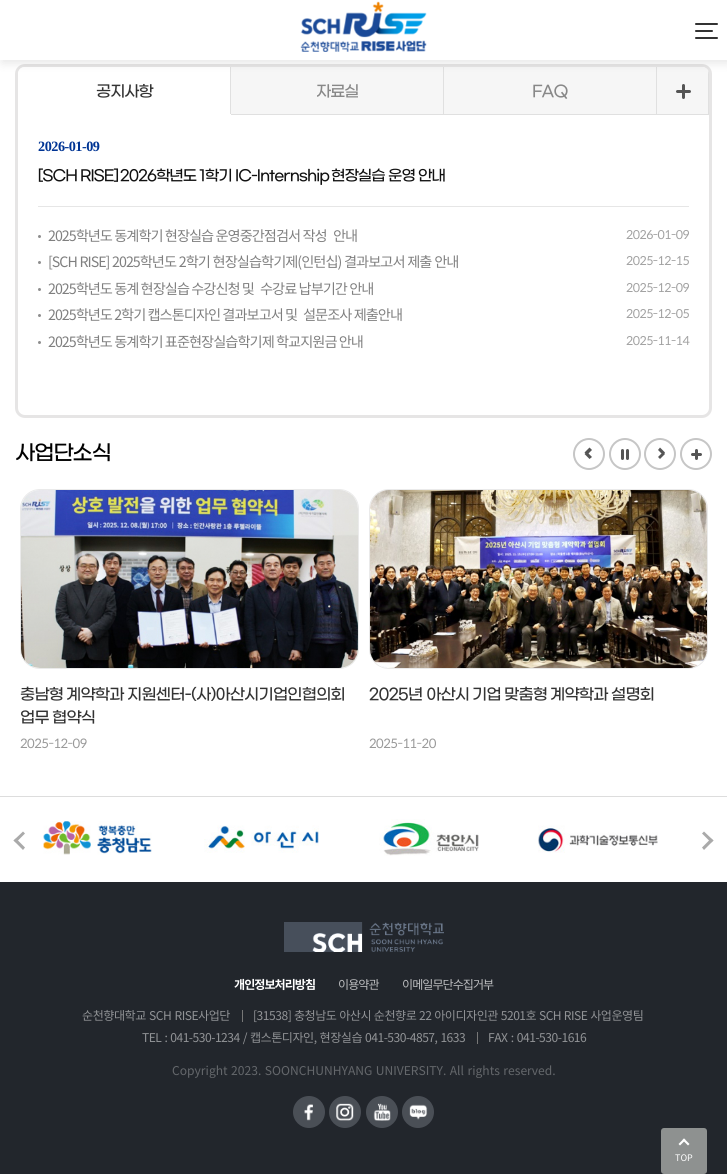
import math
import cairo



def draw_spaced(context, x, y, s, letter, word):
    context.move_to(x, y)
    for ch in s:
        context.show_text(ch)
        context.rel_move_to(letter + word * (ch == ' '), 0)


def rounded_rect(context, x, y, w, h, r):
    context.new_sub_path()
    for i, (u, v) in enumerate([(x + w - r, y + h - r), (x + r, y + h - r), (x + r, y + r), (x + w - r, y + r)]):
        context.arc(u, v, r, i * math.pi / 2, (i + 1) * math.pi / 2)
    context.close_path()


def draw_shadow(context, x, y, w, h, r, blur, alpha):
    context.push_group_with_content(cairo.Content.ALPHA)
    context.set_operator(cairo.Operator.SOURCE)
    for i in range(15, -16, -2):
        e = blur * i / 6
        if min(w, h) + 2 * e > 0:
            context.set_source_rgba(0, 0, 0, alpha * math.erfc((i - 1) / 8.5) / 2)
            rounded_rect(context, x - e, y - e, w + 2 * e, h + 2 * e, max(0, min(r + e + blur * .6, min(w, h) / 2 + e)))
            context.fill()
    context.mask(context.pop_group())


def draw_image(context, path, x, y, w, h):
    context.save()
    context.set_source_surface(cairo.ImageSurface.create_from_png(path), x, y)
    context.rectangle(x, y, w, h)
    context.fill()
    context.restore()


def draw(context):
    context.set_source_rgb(1, 1, 1)
    context.paint()
    rounded_rect(context, 16.5, 65.5, 694, 351, 8.5)
    context.set_source_rgb(230 / 255, 229 / 255, 229 / 255)
    context.set_line_width(3)
    context.stroke()
    context.set_source_rgb(246 / 255, 246 / 255, 246 / 255)
    context.new_path()
    context.move_to(25, 67)
    context.line_to(702, 67)
    context.curve_to(706, 67, 709, 70, 709, 74)
    context.line_to(709, 115)
    context.line_to(18, 115)
    context.line_to(18, 74)
    context.curve_to(18, 70, 21, 67, 25, 67)
    context.close_path()
    context.fill()
    context.set_source_rgb(1, 1, 1)
    context.new_path()
    context.move_to(25, 67)
    context.line_to(231, 67)
    context.line_to(231, 115)
    context.line_to(18, 115)
    context.line_to(18, 74)
    context.curve_to(18, 70, 21, 67, 25, 67)
    context.close_path()
    context.fill()
    context.set_source_rgb(224 / 255, 224 / 255, 224 / 255)
    context.rectangle(230, 67, 1, 48)
    context.fill()
    context.rectangle(231, 114, 478, 1)
    context.fill()
    context.rectangle(443, 67, 1, 48)
    context.fill()
    context.rectangle(656, 67, 1, 48)
    context.fill()
    context.save()
    rounded_rect(context, 18, 67, 691, 348, 7)
    context.clip()
    context.rectangle(708, 67, 1, 48)
    context.fill()
    context.restore()
    context.set_source_rgb(0, 0, 0)
    draw_shadow(context, 2, 3, 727, 60, 0, 5, 0.1)
    context.set_source_rgb(1, 1, 1)
    context.rectangle(0, 0, 727, 60)
    context.fill()
    draw_image(context, "images/1.png", 300, 1, 127, 51)
    context.set_source_rgb(51 / 255, 51 / 255, 51 / 255)
    rounded_rect(context, 695, 23, 23, 2, 1)
    context.fill()
    rounded_rect(context, 695, 30, 18, 2, 1)
    context.fill()
    rounded_rect(context, 695, 37, 23, 2, 1)
    context.fill()
    context.set_source_rgb(1, 1, 1)
    context.rectangle(230, 114, 1, 1)
    context.fill()
    context.set_source_rgb(85 / 255, 85 / 255, 85 / 255)
    rounded_rect(context, 682, 84, 3, 15, 1.5)
    context.fill()
    rounded_rect(context, 676, 90, 15, 3, 1.5)
    context.fill()
    context.set_source_rgb(230 / 255, 230 / 255, 230 / 255)
    context.rectangle(38, 206, 651, 1)
    context.fill()
    context.set_source_rgb(142 / 255, 142 / 255, 142 / 255)
    context.arc(39.5, 236.5, 1.5, 0, 2 * math.pi)
    context.fill()
    context.arc(39.5, 262.5, 1.5, 0, 2 * math.pi)
    context.fill()
    context.arc(39.5, 289.5, 1.5, 0, 2 * math.pi)
    context.fill()
    context.arc(39.5, 315.5, 1.5, 0, 2 * math.pi)
    context.fill()
    context.arc(39.5, 342.5, 1.5, 0, 2 * math.pi)
    context.fill()
    context.arc(589, 454, 15, 0, 2 * math.pi)
    context.set_source_rgb(198 / 255, 198 / 255, 198 / 255)
    context.set_line_width(2)
    context.stroke()
    context.set_source_rgb(85 / 255, 85 / 255, 85 / 255)
    context.new_path()
    context.move_to(587, 452)
    context.line_to(592, 457)
    context.line_to(589.5, 459)
    context.line_to(584.5, 454)
    context.close_path()
    context.fill()
    context.new_path()
    context.move_to(589.5, 447.5)
    context.line_to(592, 450)
    context.line_to(587, 455)
    context.line_to(584.5, 452.5)
    context.close_path()
    context.fill()
    context.arc(625, 454, 15, 0, 2 * math.pi)
    context.set_source_rgb(198 / 255, 198 / 255, 198 / 255)
    context.stroke()
    context.set_source_rgb(85 / 255, 85 / 255, 85 / 255)
    rounded_rect(context, 621, 449, 3, 11, 1.5)
    context.fill()
    rounded_rect(context, 626, 449, 3, 11, 1.5)
    context.fill()
    context.arc(660, 454, 15, 0, 2 * math.pi)
    context.set_source_rgb(198 / 255, 198 / 255, 198 / 255)
    context.stroke()
    context.set_source_rgb(85 / 255, 85 / 255, 85 / 255)
    context.new_path()
    context.move_to(660, 447.5)
    context.line_to(665, 452.5)
    context.line_to(663, 455)
    context.line_to(658, 450)
    context.close_path()
    context.fill()
    context.new_path()
    context.move_to(663, 452)
    context.line_to(665, 454)
    context.line_to(660, 459)
    context.line_to(658, 457)
    context.close_path()
    context.fill()
    context.arc(696, 454, 15, 0, 2 * math.pi)
    context.set_source_rgb(198 / 255, 198 / 255, 198 / 255)
    context.stroke()
    context.set_source_rgb(85 / 255, 85 / 255, 85 / 255)
    rounded_rect(context, 695, 449, 3, 11, 1.5)
    context.fill()
    rounded_rect(context, 691, 453, 11, 3, 1.5)
    context.fill()
    rounded_rect(context, 20.5, 489.5, 338, 179, 19.5)
    context.set_source_rgb(234 / 255, 234 / 255, 234 / 255)
    context.set_line_width(1)
    context.stroke()
    draw_image(context, "images/2.png", 21, 490, 337, 178)
    rounded_rect(context, 369.5, 489.5, 338, 179, 19.5)
    context.stroke()
    draw_image(context, "images/3.png", 370, 490, 337, 178)
    context.set_source_rgb(221 / 255, 221 / 255, 221 / 255)
    context.rectangle(0, 796, 727, 1)
    context.fill()
    draw_image(context, "images/4.png", 43, 821, 109, 34)
    draw_image(context, "images/5.png", 204, 825, 115, 28)
    draw_image(context, "images/6.png", 379, 819, 100, 37)
    draw_image(context, "images/7.png", 538, 825, 120, 28)
    context.set_source_rgb(170 / 255, 170 / 255, 170 / 255)
    context.new_path()
    context.move_to(25, 847.5)
    context.line_to(23, 850)
    context.line_to(13.5, 840.5)
    context.line_to(16, 838.5)
    context.close_path()
    context.fill()
    context.new_path()
    context.move_to(25, 833.5)
    context.line_to(16, 842.5)
    context.line_to(13.5, 840.5)
    context.line_to(23, 831.5)
    context.close_path()
    context.fill()
    context.new_path()
    context.move_to(702, 833.5)
    context.line_to(704, 831.5)
    context.line_to(713.5, 840.5)
    context.line_to(711, 842.5)
    context.close_path()
    context.fill()
    context.new_path()
    context.move_to(702, 847.5)
    context.line_to(711, 838.5)
    context.line_to(713.5, 840.5)
    context.line_to(704, 850)
    context.close_path()
    context.fill()
    context.set_source_rgb(34 / 255, 38 / 255, 44 / 255)
    context.rectangle(0, 882, 727, 292)
    context.fill()
    draw_image(context, "images/8.png", 284, 922, 160, 30)
    context.set_source_rgb(119 / 255, 119 / 255, 119 / 255)
    context.rectangle(242, 1010, 1, 12)
    context.fill()
    context.rectangle(477, 1032, 1, 12)
    context.fill()
    context.set_source_rgb(74 / 255, 79 / 255, 86 / 255)
    context.arc(309, 1112, 16, 0, 2 * math.pi)
    context.fill()
    draw_image(context, "images/9.png", 304, 1104, 9, 17)
    context.arc(345, 1112, 16, 0, 2 * math.pi)
    context.fill()
    draw_image(context, "images/10.png", 336, 1103, 18, 18)
    context.arc(382, 1112, 16, 0, 2 * math.pi)
    context.fill()
    draw_image(context, "images/11.png", 373, 1103, 18, 18)
    context.arc(418, 1112, 16, 0, 2 * math.pi)
    context.fill()
    draw_image(context, "images/12.png", 409, 1104, 19, 16)
    context.set_source_rgb(142 / 255, 145 / 255, 144 / 255)
    rounded_rect(context, 661, 1128, 46, 46, 3)
    context.fill()
    context.set_source_rgb(1, 1, 1)
    context.new_path()
    context.move_to(678.5, 1144)
    context.line_to(684, 1138.5)
    context.line_to(685.5, 1140)
    context.line_to(680, 1145.5)
    context.close_path()
    context.fill()
    context.new_path()
    context.move_to(682.5, 1140)
    context.line_to(684, 1138.5)
    context.line_to(689.5, 1144)
    context.line_to(688, 1145.5)
    context.close_path()
    context.fill()
    context.select_font_face("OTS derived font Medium")
    context.set_font_size(15.75)
    context.set_source_rgb(51 / 255, 51 / 255, 51 / 255)
    draw_spaced(context, 96, 96, "공지사항", -1, 0)
    context.set_source_rgb(136 / 255, 136 / 255, 136 / 255)
    draw_spaced(context, 316, 96, "자료실", -1, 0)
    draw_spaced(context, 532, 96, "FAQ", -1, 0)
    context.select_font_face("Liberation Serif", cairo.FontSlant.NORMAL, cairo.FontWeight.BOLD)
    context.set_font_size(14.25)
    context.set_source_rgb(0, 52 / 255, 148 / 255)
    draw_spaced(context, 38, 151, "2026-01-09", -0.5, 0)
    context.select_font_face("OTS derived font Medium")
    context.set_font_size(15)
    context.set_source_rgb(17 / 255, 17 / 255, 17 / 255)
    draw_spaced(context, 38, 180, "[SCH", -1, 0)
    draw_spaced(context, 80, 180, "RISE]", -1, 0)
    draw_spaced(context, 120, 180, "2026학년도", -1, 0)
    draw_spaced(context, 199, 180, "1학기", -1, 0)
    draw_spaced(context, 235, 180, "IC-Internship", -1, 0)
    draw_spaced(context, 331, 180, "현장실습", -1, 0)
    draw_spaced(context, 388, 180, "운영", -1, 0)
    draw_spaced(context, 418, 180, "안내", -1, 0)
    context.select_font_face("Noto Sans KR")
    context.set_font_size(14.25)
    context.set_source_rgb(127 / 255, 127 / 255, 127 / 255)
    draw_spaced(context, 48, 241, "2025학년도 동계학기 현장실습 운영중간점검서 작성", -1, 0)
    draw_spaced(context, 333, 241, "안내", -1, 0)
    context.select_font_face("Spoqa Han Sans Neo")
    context.set_font_size(12.1)
    context.set_source_rgb(161 / 255, 161 / 255, 161 / 255)
    draw_spaced(context, 626, 239, "2026-01-09", -0.5, 0)
    context.select_font_face("Noto Sans KR")
    context.set_font_size(14.25)
    context.set_source_rgb(127 / 255, 127 / 255, 127 / 255)
    draw_spaced(context, 48, 267, "[SCH RISE] 2025학년도 2학기 현장실습학기제(인턴십) 결과보고서 제출 안내", -1, 0.5)
    context.select_font_face("Spoqa Han Sans Neo")
    context.set_font_size(12.1)
    context.set_source_rgb(161 / 255, 161 / 255, 161 / 255)
    draw_spaced(context, 626, 265, "2025-12-15", -0.5, 0)
    context.select_font_face("Noto Sans KR")
    context.set_font_size(14.25)
    context.set_source_rgb(127 / 255, 127 / 255, 127 / 255)
    draw_spaced(context, 48, 294, "2025학년도 동계 현장실습 수강신청 및", -1, 0)
    draw_spaced(context, 260, 294, "수강료 납부기간 안내", -1, 0)
    context.select_font_face("Spoqa Han Sans Neo")
    context.set_font_size(12.1)
    context.set_source_rgb(161 / 255, 161 / 255, 161 / 255)
    draw_spaced(context, 626, 292, "2025-12-09", -0.5, 0)
    context.select_font_face("Noto Sans KR")
    context.set_font_size(14.25)
    context.set_source_rgb(127 / 255, 127 / 255, 127 / 255)
    draw_spaced(context, 48, 320, "2025학년도 2학기 캡스톤디자인 결과보고서 및", -1, 0)
    draw_spaced(context, 303, 320, "설문조사 제출안내", -1, 0)
    context.select_font_face("Spoqa Han Sans Neo")
    context.set_font_size(12.1)
    context.set_source_rgb(161 / 255, 161 / 255, 161 / 255)
    draw_spaced(context, 626, 318, "2025-12-05", -0.5, 0)
    context.select_font_face("Noto Sans KR")
    context.set_font_size(14.25)
    context.set_source_rgb(127 / 255, 127 / 255, 127 / 255)
    draw_spaced(context, 48, 347, "2025학년도 동계학기 표준현장실습학기제 학교지원금 안내", -1, 0)
    context.select_font_face("Spoqa Han Sans Neo")
    context.set_font_size(12.1)
    context.set_source_rgb(161 / 255, 161 / 255, 161 / 255)
    draw_spaced(context, 626, 345, "2025-11-14", -0.5, 0)
    context.select_font_face("OTS derived font Medium")
    context.set_font_size(21)
    context.set_source_rgb(0, 0, 0)
    draw_spaced(context, 15, 459, "사업단소식", -1, 0)
    context.set_font_size(15.75)
    context.set_source_rgb(51 / 255, 51 / 255, 51 / 255)
    draw_spaced(context, 20, 699, "충남형", -0.75, 0)
    draw_spaced(context, 66, 699, "계약학과", -0.75, 0)
    draw_spaced(context, 127, 699, "지원센터-(사)아산시기업인협의회", -0.75, 0)
    draw_spaced(context, 20, 722, "업무", -0.75, 0)
    draw_spaced(context, 52, 722, "협약식", -0.75, 0)
    context.select_font_face("Spoqa Han Sans Neo")
    context.set_font_size(12.75)
    context.set_source_rgb(153 / 255, 153 / 255, 153 / 255)
    draw_spaced(context, 20, 748, "2025-12-09", -0.5, 0)
    context.select_font_face("OTS derived font Medium")
    context.set_font_size(15.75)
    context.set_source_rgb(51 / 255, 51 / 255, 51 / 255)
    draw_spaced(context, 369, 699, "2025년", -0.75, 0)
    draw_spaced(context, 426, 699, "아산시", -0.75, 0)
    draw_spaced(context, 472, 699, "기업", -0.75, 0)
    draw_spaced(context, 504, 699, "맞춤형", -0.75, 0)
    draw_spaced(context, 550, 699, "계약학과", -0.75, 0)
    draw_spaced(context, 611, 699, "설명회", -0.75, 0)
    context.select_font_face("Spoqa Han Sans Neo")
    context.set_font_size(12.75)
    context.set_source_rgb(153 / 255, 153 / 255, 153 / 255)
    draw_spaced(context, 369, 748, "2025-11-20", -0.5, 0)
    context.select_font_face("Noto Sans KR", cairo.FontSlant.NORMAL, cairo.FontWeight.BOLD)
    context.set_font_size(12.1)
    context.set_source_rgb(1, 1, 1)
    draw_spaced(context, 234, 989, "개인정보처리방침", -1, 0)
    context.select_font_face("Noto Sans KR")
    context.set_source_rgb(189 / 255, 190 / 255, 192 / 255)
    draw_spaced(context, 338, 989, "이용약관", -1, 0)
    draw_spaced(context, 402, 989, "이메일무단수집거부", -1, 0)
    context.set_source_rgb(145 / 255, 147 / 255, 150 / 255)
    draw_spaced(context, 82, 1020, "순천향대학교 SCH RISE사업단", -0.5, 1)
    draw_spaced(context, 253, 1020, "[31538] 충청남도 아산시 순천향로 22 아이디자인관 5201호 SCH RISE 사업운영팀", -0.5, 0.5)
    draw_spaced(context, 142, 1042, "TEL : 041-530-1234 / 캡스톤디자인, 현장실습 041-530-4857, 1633", -0.5, 0.75)
    draw_spaced(context, 488, 1042, "FAX : 041-530-1616", -0.5, 1)
    context.set_source_rgb(100 / 255, 103 / 255, 107 / 255)
    draw_spaced(context, 172, 1075, "Copyright 2023. SOONCHUNHYANG UNIVERSITY. All rights reserved.", 0, 0.75)
    context.set_font_size(9)
    context.set_source_rgb(1, 1, 1)
    context.move_to(675, 1161)
    context.show_text("TOP")


surface = cairo.ImageSurface(cairo.Format.RGB24, 727, 1174)
context = cairo.Context(surface)
options = cairo.FontOptions()
options.set_hint_metrics(cairo.HintMetrics.OFF)
options.set_hint_style(cairo.HintStyle.NONE)
context.set_font_options(options)
context.set_miter_limit(4)
draw(context)
surface.write_to_png("out.png")
